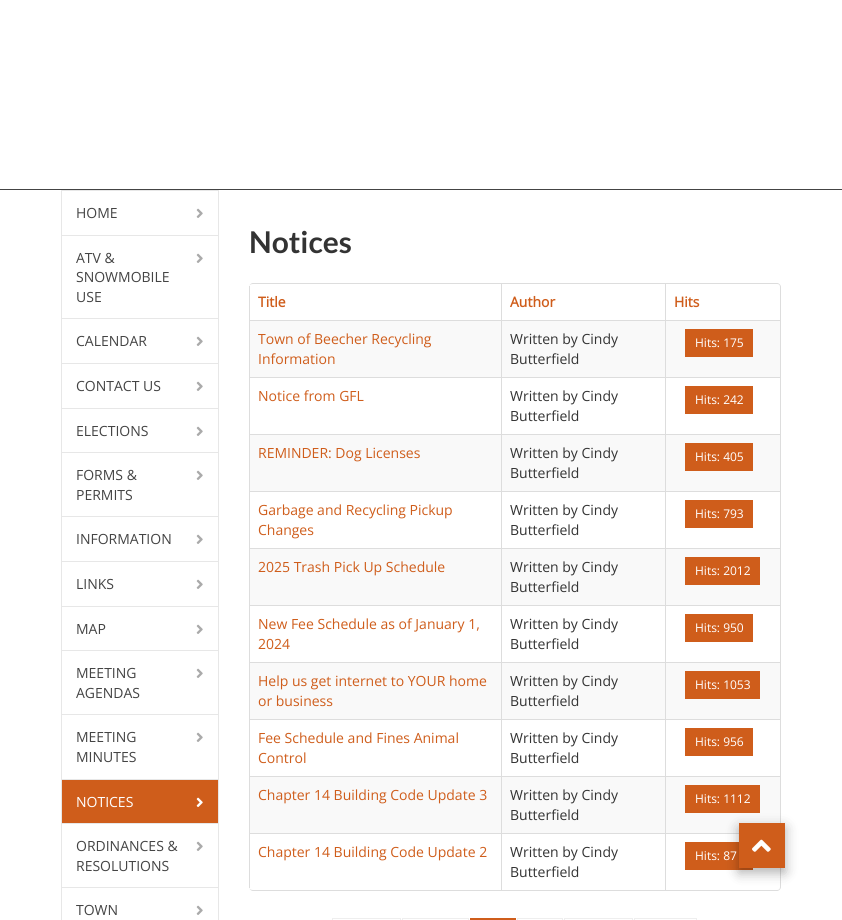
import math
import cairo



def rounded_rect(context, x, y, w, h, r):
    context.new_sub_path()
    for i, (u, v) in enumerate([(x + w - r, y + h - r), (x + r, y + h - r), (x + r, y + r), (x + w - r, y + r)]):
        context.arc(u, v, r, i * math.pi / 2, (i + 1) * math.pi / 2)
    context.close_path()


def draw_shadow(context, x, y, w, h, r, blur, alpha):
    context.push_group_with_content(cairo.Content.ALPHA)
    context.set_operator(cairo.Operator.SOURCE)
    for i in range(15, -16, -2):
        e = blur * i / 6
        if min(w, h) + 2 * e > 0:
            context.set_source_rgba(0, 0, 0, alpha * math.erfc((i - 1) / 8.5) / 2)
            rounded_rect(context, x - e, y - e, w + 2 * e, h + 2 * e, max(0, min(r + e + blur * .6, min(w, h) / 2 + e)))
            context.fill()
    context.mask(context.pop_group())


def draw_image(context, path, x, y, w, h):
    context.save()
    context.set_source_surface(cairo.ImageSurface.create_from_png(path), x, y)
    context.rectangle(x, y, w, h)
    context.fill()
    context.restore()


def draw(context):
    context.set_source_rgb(1, 1, 1)
    context.paint()
    context.set_source_rgb(68 / 255, 68 / 255, 68 / 255)
    context.rectangle(0, 189, 842, 1)
    context.fill()
    context.set_source_rgb(231 / 255, 231 / 255, 231 / 255)
    context.rectangle(61, 190, 158, 1)
    context.fill()
    context.rectangle(218, 190, 1, 730)
    context.fill()
    context.rectangle(61, 190, 1, 730)
    context.fill()
    context.rectangle(62, 235, 156, 1)
    context.fill()
    draw_image(context, "images/1.png", 196, 208, 7, 10)
    context.rectangle(62, 318, 156, 1)
    context.fill()
    draw_image(context, "images/1.png", 196, 253, 7, 10)
    context.rectangle(62, 363, 156, 1)
    context.fill()
    draw_image(context, "images/1.png", 196, 336, 7, 10)
    context.rectangle(62, 408, 156, 1)
    context.fill()
    draw_image(context, "images/1.png", 196, 381, 7, 10)
    context.rectangle(62, 452, 156, 1)
    context.fill()
    draw_image(context, "images/1.png", 196, 426, 7, 10)
    context.rectangle(62, 516, 156, 1)
    context.fill()
    draw_image(context, "images/1.png", 196, 470, 7, 10)
    context.rectangle(62, 561, 156, 1)
    context.fill()
    draw_image(context, "images/1.png", 196, 534, 7, 10)
    context.rectangle(62, 606, 156, 1)
    context.fill()
    draw_image(context, "images/1.png", 196, 579, 7, 10)
    context.rectangle(62, 650, 156, 1)
    context.fill()
    draw_image(context, "images/1.png", 196, 624, 7, 10)
    context.rectangle(62, 714, 156, 1)
    context.fill()
    draw_image(context, "images/1.png", 196, 668, 7, 10)
    context.rectangle(62, 779, 156, 1)
    context.fill()
    draw_image(context, "images/1.png", 196, 732, 7, 10)
    context.set_source_rgb(207 / 255, 93 / 255, 27 / 255)
    context.rectangle(62, 780, 156, 43)
    context.fill()
    context.set_source_rgb(231 / 255, 231 / 255, 231 / 255)
    context.rectangle(62, 823, 156, 1)
    context.fill()
    draw_image(context, "images/2.png", 196, 797, 7, 10)
    context.rectangle(62, 887, 156, 1)
    context.fill()
    draw_image(context, "images/1.png", 196, 841, 7, 10)
    draw_image(context, "images/1.png", 196, 905, 7, 10)
    context.set_source_rgb(221 / 255, 221 / 255, 221 / 255)
    context.set_fill_rule(cairo.FillRule.EVEN_ODD)
    context.new_path()
    context.move_to(253, 283)
    context.line_to(777, 283)
    context.curve_to(779, 283, 781, 285, 781, 287)
    context.line_to(781, 887)
    context.curve_to(781, 889, 779, 891, 777, 891)
    context.line_to(253, 891)
    context.curve_to(251, 891, 249, 889, 249, 887)
    context.line_to(249, 287)
    context.curve_to(249, 285, 251, 283, 253, 283)
    context.close_path()
    context.move_to(253, 284)
    context.line_to(777, 284)
    context.curve_to(779, 284, 780, 285, 780, 287)
    context.line_to(780, 887)
    context.curve_to(780, 889, 779, 890, 777, 890)
    context.line_to(253, 890)
    context.curve_to(251, 890, 249, 889, 249, 887)
    context.line_to(249, 287)
    context.curve_to(249, 285, 251, 284, 253, 284)
    context.close_path()
    context.fill()
    context.rectangle(249, 286, 1, 34)
    context.fill()
    context.rectangle(501, 284, 1, 36)
    context.fill()
    context.rectangle(665, 284, 1, 36)
    context.fill()
    context.set_source_rgb(249 / 255, 249 / 255, 249 / 255)
    context.rectangle(250, 321, 251, 56)
    context.fill()
    context.set_source_rgb(221 / 255, 221 / 255, 221 / 255)
    context.rectangle(249, 320, 531, 1)
    context.fill()
    context.rectangle(249, 320, 1, 57)
    context.fill()
    context.set_source_rgb(249 / 255, 249 / 255, 249 / 255)
    context.rectangle(502, 321, 163, 56)
    context.fill()
    context.set_source_rgb(221 / 255, 221 / 255, 221 / 255)
    context.rectangle(501, 320, 1, 57)
    context.fill()
    context.set_source_rgb(249 / 255, 249 / 255, 249 / 255)
    context.rectangle(666, 321, 114, 56)
    context.fill()
    context.set_source_rgb(221 / 255, 221 / 255, 221 / 255)
    context.rectangle(665, 320, 1, 57)
    context.fill()
    context.set_source_rgb(207 / 255, 93 / 255, 27 / 255)
    context.rectangle(685, 329, 68, 28)
    context.fill()
    context.set_source_rgb(221 / 255, 221 / 255, 221 / 255)
    context.rectangle(249, 377, 531, 1)
    context.fill()
    context.rectangle(249, 377, 1, 57)
    context.fill()
    context.rectangle(501, 377, 1, 57)
    context.fill()
    context.rectangle(665, 377, 1, 57)
    context.fill()
    context.set_source_rgb(207 / 255, 93 / 255, 27 / 255)
    context.rectangle(685, 386, 68, 28)
    context.fill()
    context.set_source_rgb(249 / 255, 249 / 255, 249 / 255)
    context.rectangle(250, 435, 251, 56)
    context.fill()
    context.set_source_rgb(221 / 255, 221 / 255, 221 / 255)
    context.rectangle(249, 434, 531, 1)
    context.fill()
    context.rectangle(249, 434, 1, 57)
    context.fill()
    context.set_source_rgb(249 / 255, 249 / 255, 249 / 255)
    context.rectangle(502, 435, 163, 56)
    context.fill()
    context.set_source_rgb(221 / 255, 221 / 255, 221 / 255)
    context.rectangle(501, 434, 1, 57)
    context.fill()
    context.set_source_rgb(249 / 255, 249 / 255, 249 / 255)
    context.rectangle(666, 435, 114, 56)
    context.fill()
    context.set_source_rgb(221 / 255, 221 / 255, 221 / 255)
    context.rectangle(665, 434, 1, 57)
    context.fill()
    context.set_source_rgb(207 / 255, 93 / 255, 27 / 255)
    context.rectangle(685, 443, 68, 28)
    context.fill()
    context.set_source_rgb(221 / 255, 221 / 255, 221 / 255)
    context.rectangle(249, 491, 531, 1)
    context.fill()
    context.rectangle(249, 491, 1, 57)
    context.fill()
    context.rectangle(501, 491, 1, 57)
    context.fill()
    context.rectangle(665, 491, 1, 57)
    context.fill()
    context.set_source_rgb(207 / 255, 93 / 255, 27 / 255)
    context.rectangle(685, 500, 68, 28)
    context.fill()
    context.set_source_rgb(249 / 255, 249 / 255, 249 / 255)
    context.rectangle(250, 549, 251, 56)
    context.fill()
    context.set_source_rgb(221 / 255, 221 / 255, 221 / 255)
    context.rectangle(249, 548, 531, 1)
    context.fill()
    context.rectangle(249, 548, 1, 57)
    context.fill()
    context.set_source_rgb(249 / 255, 249 / 255, 249 / 255)
    context.rectangle(502, 549, 163, 56)
    context.fill()
    context.set_source_rgb(221 / 255, 221 / 255, 221 / 255)
    context.rectangle(501, 548, 1, 57)
    context.fill()
    context.set_source_rgb(249 / 255, 249 / 255, 249 / 255)
    context.rectangle(666, 549, 114, 56)
    context.fill()
    context.set_source_rgb(221 / 255, 221 / 255, 221 / 255)
    context.rectangle(665, 548, 1, 57)
    context.fill()
    context.set_source_rgb(207 / 255, 93 / 255, 27 / 255)
    context.rectangle(685, 557, 75, 28)
    context.fill()
    context.set_source_rgb(221 / 255, 221 / 255, 221 / 255)
    context.rectangle(249, 605, 531, 1)
    context.fill()
    context.rectangle(249, 605, 1, 57)
    context.fill()
    context.rectangle(501, 605, 1, 57)
    context.fill()
    context.rectangle(665, 605, 1, 57)
    context.fill()
    context.set_source_rgb(207 / 255, 93 / 255, 27 / 255)
    context.rectangle(685, 614, 68, 28)
    context.fill()
    context.set_source_rgb(249 / 255, 249 / 255, 249 / 255)
    context.rectangle(250, 663, 251, 56)
    context.fill()
    context.set_source_rgb(221 / 255, 221 / 255, 221 / 255)
    context.rectangle(249, 662, 531, 1)
    context.fill()
    context.rectangle(249, 662, 1, 57)
    context.fill()
    context.set_source_rgb(249 / 255, 249 / 255, 249 / 255)
    context.rectangle(502, 663, 163, 56)
    context.fill()
    context.set_source_rgb(221 / 255, 221 / 255, 221 / 255)
    context.rectangle(501, 662, 1, 57)
    context.fill()
    context.set_source_rgb(249 / 255, 249 / 255, 249 / 255)
    context.rectangle(666, 663, 114, 56)
    context.fill()
    context.set_source_rgb(221 / 255, 221 / 255, 221 / 255)
    context.rectangle(665, 662, 1, 57)
    context.fill()
    context.set_source_rgb(207 / 255, 93 / 255, 27 / 255)
    context.rectangle(685, 671, 75, 28)
    context.fill()
    context.set_source_rgb(221 / 255, 221 / 255, 221 / 255)
    context.rectangle(249, 719, 531, 1)
    context.fill()
    context.rectangle(249, 719, 1, 57)
    context.fill()
    context.rectangle(501, 719, 1, 57)
    context.fill()
    context.rectangle(665, 719, 1, 57)
    context.fill()
    context.set_source_rgb(207 / 255, 93 / 255, 27 / 255)
    context.rectangle(685, 728, 68, 28)
    context.fill()
    context.set_source_rgb(249 / 255, 249 / 255, 249 / 255)
    context.rectangle(250, 777, 251, 56)
    context.fill()
    context.set_source_rgb(221 / 255, 221 / 255, 221 / 255)
    context.rectangle(249, 776, 531, 1)
    context.fill()
    context.rectangle(249, 776, 1, 57)
    context.fill()
    context.set_source_rgb(249 / 255, 249 / 255, 249 / 255)
    context.rectangle(502, 777, 163, 56)
    context.fill()
    context.set_source_rgb(221 / 255, 221 / 255, 221 / 255)
    context.rectangle(501, 776, 1, 57)
    context.fill()
    context.set_source_rgb(249 / 255, 249 / 255, 249 / 255)
    context.rectangle(666, 777, 114, 56)
    context.fill()
    context.set_source_rgb(221 / 255, 221 / 255, 221 / 255)
    context.rectangle(665, 776, 1, 57)
    context.fill()
    context.set_source_rgb(207 / 255, 93 / 255, 27 / 255)
    context.rectangle(685, 785, 75, 28)
    context.fill()
    context.set_source_rgb(221 / 255, 221 / 255, 221 / 255)
    context.rectangle(249, 833, 490, 1)
    context.fill()
    context.rectangle(249, 833, 1, 55)
    context.fill()
    context.rectangle(501, 833, 1, 57)
    context.fill()
    context.rectangle(665, 833, 1, 57)
    context.fill()
    context.set_source_rgb(207 / 255, 93 / 255, 27 / 255)
    context.rectangle(685, 842, 68, 28)
    context.fill()
    context.rectangle(332.5, 918.5, 68, 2)
    context.set_source_rgb(238 / 255, 238 / 255, 238 / 255)
    context.set_line_width(1)
    context.stroke()
    context.rectangle(402.5, 918.5, 66, 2)
    context.stroke()
    context.set_source_rgb(207 / 255, 93 / 255, 27 / 255)
    context.rectangle(470, 918, 46, 2)
    context.fill()
    context.rectangle(517.5, 918.5, 45, 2)
    context.set_source_rgb(238 / 255, 238 / 255, 238 / 255)
    context.stroke()
    context.rectangle(564.5, 918.5, 68, 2)
    context.stroke()
    context.rectangle(634.5, 918.5, 62, 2)
    context.stroke()
    context.set_source_rgb(0, 0, 0)
    draw_shadow(context, 739, 827, 46, 45, 0, 7.5, 0.15)
    draw_shadow(context, 739, 828, 46, 45, 0, 5.5, 0.18)
    context.set_source_rgb(207 / 255, 93 / 255, 27 / 255)
    context.rectangle(739, 823, 46, 45)
    context.fill()
    draw_image(context, "images/3.png", 752, 839, 19, 13)
    context.select_font_face("Open Sans")
    context.set_font_size(14)
    context.set_source_rgb(68 / 255, 68 / 255, 68 / 255)
    context.move_to(76, 218)
    context.show_text("HOME")
    context.move_to(76, 263)
    context.show_text("ATV &")
    context.move_to(76, 282)
    context.show_text("SNOWMOBILE")
    context.move_to(76, 302)
    context.show_text("USE")
    context.move_to(76, 346)
    context.show_text("CALENDAR")
    context.move_to(76, 391)
    context.show_text("CONTACT US")
    context.move_to(76, 436)
    context.show_text("ELECTIONS")
    context.move_to(76, 480)
    context.show_text("FORMS &")
    context.move_to(76, 500)
    context.show_text("PERMITS")
    context.move_to(76, 544)
    context.show_text("INFORMATION")
    context.move_to(76, 589)
    context.show_text("LINKS")
    context.move_to(76, 634)
    context.show_text("MAP")
    context.move_to(76, 678)
    context.show_text("MEETING")
    context.move_to(76, 698)
    context.show_text("AGENDAS")
    context.move_to(76, 742)
    context.show_text("MEETING")
    context.move_to(76, 762)
    context.show_text("MINUTES")
    context.set_source_rgb(1, 1, 1)
    context.move_to(76, 807)
    context.show_text("NOTICES")
    context.set_source_rgb(68 / 255, 68 / 255, 68 / 255)
    context.move_to(76, 851)
    context.show_text("ORDINANCES &")
    context.move_to(76, 871)
    context.show_text("RESOLUTIONS")
    context.move_to(76, 915)
    context.show_text("TOWN")
    context.select_font_face("Lato", cairo.FontSlant.NORMAL, cairo.FontWeight.BOLD)
    context.set_font_size(30)
    context.set_source_rgb(51 / 255, 51 / 255, 51 / 255)
    context.move_to(249, 253)
    context.show_text("Notices")
    context.select_font_face("Open Sans", cairo.FontSlant.NORMAL, cairo.FontWeight.BOLD)
    context.set_font_size(14)
    context.set_source_rgb(207 / 255, 93 / 255, 27 / 255)
    context.move_to(258, 307)
    context.show_text("Title")
    context.move_to(510, 307)
    context.show_text("Author")
    context.move_to(674, 307)
    context.show_text("Hits")
    context.select_font_face("Open Sans")
    context.move_to(258, 344)
    context.show_text("Town of Beecher Recycling")
    context.move_to(258, 364)
    context.show_text("Information")
    context.set_source_rgb(51 / 255, 51 / 255, 51 / 255)
    context.move_to(510, 344)
    context.show_text("Written by Cindy")
    context.move_to(510, 364)
    context.show_text("Butterfield")
    context.set_font_size(12)
    context.set_source_rgb(1, 1, 1)
    context.move_to(695, 347)
    context.show_text("Hits: 175")
    context.set_font_size(14)
    context.set_source_rgb(207 / 255, 93 / 255, 27 / 255)
    context.move_to(258, 401)
    context.show_text("Notice from GFL")
    context.set_source_rgb(51 / 255, 51 / 255, 51 / 255)
    context.move_to(510, 401)
    context.show_text("Written by Cindy")
    context.move_to(510, 421)
    context.show_text("Butterfield")
    context.set_font_size(12)
    context.set_source_rgb(1, 1, 1)
    context.move_to(695, 404)
    context.show_text("Hits: 242")
    context.set_font_size(14)
    context.set_source_rgb(207 / 255, 93 / 255, 27 / 255)
    context.move_to(258, 458)
    context.show_text("REMINDER: Dog Licenses")
    context.set_source_rgb(51 / 255, 51 / 255, 51 / 255)
    context.move_to(510, 458)
    context.show_text("Written by Cindy")
    context.move_to(510, 478)
    context.show_text("Butterfield")
    context.set_font_size(12)
    context.set_source_rgb(1, 1, 1)
    context.move_to(695, 461)
    context.show_text("Hits: 405")
    context.set_font_size(14)
    context.set_source_rgb(207 / 255, 93 / 255, 27 / 255)
    context.move_to(258, 515)
    context.show_text("Garbage and Recycling Pickup")
    context.move_to(258, 535)
    context.show_text("Changes")
    context.set_source_rgb(51 / 255, 51 / 255, 51 / 255)
    context.move_to(510, 515)
    context.show_text("Written by Cindy")
    context.move_to(510, 535)
    context.show_text("Butterfield")
    context.set_font_size(12)
    context.set_source_rgb(1, 1, 1)
    context.move_to(695, 518)
    context.show_text("Hits: 793")
    context.set_font_size(14)
    context.set_source_rgb(207 / 255, 93 / 255, 27 / 255)
    context.move_to(258, 572)
    context.show_text("2025 Trash Pick Up Schedule")
    context.set_source_rgb(51 / 255, 51 / 255, 51 / 255)
    context.move_to(510, 572)
    context.show_text("Written by Cindy")
    context.move_to(510, 592)
    context.show_text("Butterfield")
    context.set_font_size(12)
    context.set_source_rgb(1, 1, 1)
    context.move_to(695, 575)
    context.show_text("Hits: 2012")
    context.set_font_size(14)
    context.set_source_rgb(207 / 255, 93 / 255, 27 / 255)
    context.move_to(258, 629)
    context.show_text("New Fee Schedule as of January 1,")
    context.move_to(258, 649)
    context.show_text("2024")
    context.set_source_rgb(51 / 255, 51 / 255, 51 / 255)
    context.move_to(510, 629)
    context.show_text("Written by Cindy")
    context.move_to(510, 649)
    context.show_text("Butterfield")
    context.set_font_size(12)
    context.set_source_rgb(1, 1, 1)
    context.move_to(695, 632)
    context.show_text("Hits: 950")
    context.set_font_size(14)
    context.set_source_rgb(207 / 255, 93 / 255, 27 / 255)
    context.move_to(258, 686)
    context.show_text("Help us get internet to YOUR home")
    context.move_to(258, 706)
    context.show_text("or business")
    context.set_source_rgb(51 / 255, 51 / 255, 51 / 255)
    context.move_to(510, 686)
    context.show_text("Written by Cindy")
    context.move_to(510, 706)
    context.show_text("Butterfield")
    context.set_font_size(12)
    context.set_source_rgb(1, 1, 1)
    context.move_to(695, 689)
    context.show_text("Hits: 1053")
    context.set_font_size(14)
    context.set_source_rgb(207 / 255, 93 / 255, 27 / 255)
    context.move_to(258, 743)
    context.show_text("Fee Schedule and Fines Animal")
    context.move_to(258, 763)
    context.show_text("Control")
    context.set_source_rgb(51 / 255, 51 / 255, 51 / 255)
    context.move_to(510, 743)
    context.show_text("Written by Cindy")
    context.move_to(510, 763)
    context.show_text("Butterfield")
    context.set_font_size(12)
    context.set_source_rgb(1, 1, 1)
    context.move_to(695, 746)
    context.show_text("Hits: 956")
    context.set_font_size(14)
    context.set_source_rgb(207 / 255, 93 / 255, 27 / 255)
    context.move_to(258, 800)
    context.show_text("Chapter 14 Building Code Update 3")
    context.set_source_rgb(51 / 255, 51 / 255, 51 / 255)
    context.move_to(510, 800)
    context.show_text("Written by Cindy")
    context.move_to(510, 820)
    context.show_text("Butterfield")
    context.set_font_size(12)
    context.set_source_rgb(1, 1, 1)
    context.move_to(695, 803)
    context.show_text("Hits: 1112")
    context.set_font_size(14)
    context.set_source_rgb(207 / 255, 93 / 255, 27 / 255)
    context.move_to(258, 857)
    context.show_text("Chapter 14 Building Code Update 2")
    context.set_source_rgb(51 / 255, 51 / 255, 51 / 255)
    context.move_to(510, 857)
    context.show_text("Written by Cindy")
    context.move_to(510, 877)
    context.show_text("Butterfield")
    context.set_font_size(12)
    context.set_source_rgb(1, 1, 1)
    context.move_to(695, 860)
    context.show_text("Hits: 87")


surface = cairo.ImageSurface(cairo.Format.RGB24, 842, 920)
context = cairo.Context(surface)
options = cairo.FontOptions()
options.set_hint_metrics(cairo.HintMetrics.OFF)
options.set_hint_style(cairo.HintStyle.NONE)
context.set_font_options(options)
context.set_miter_limit(4)
draw(context)
surface.write_to_png("out.png")
